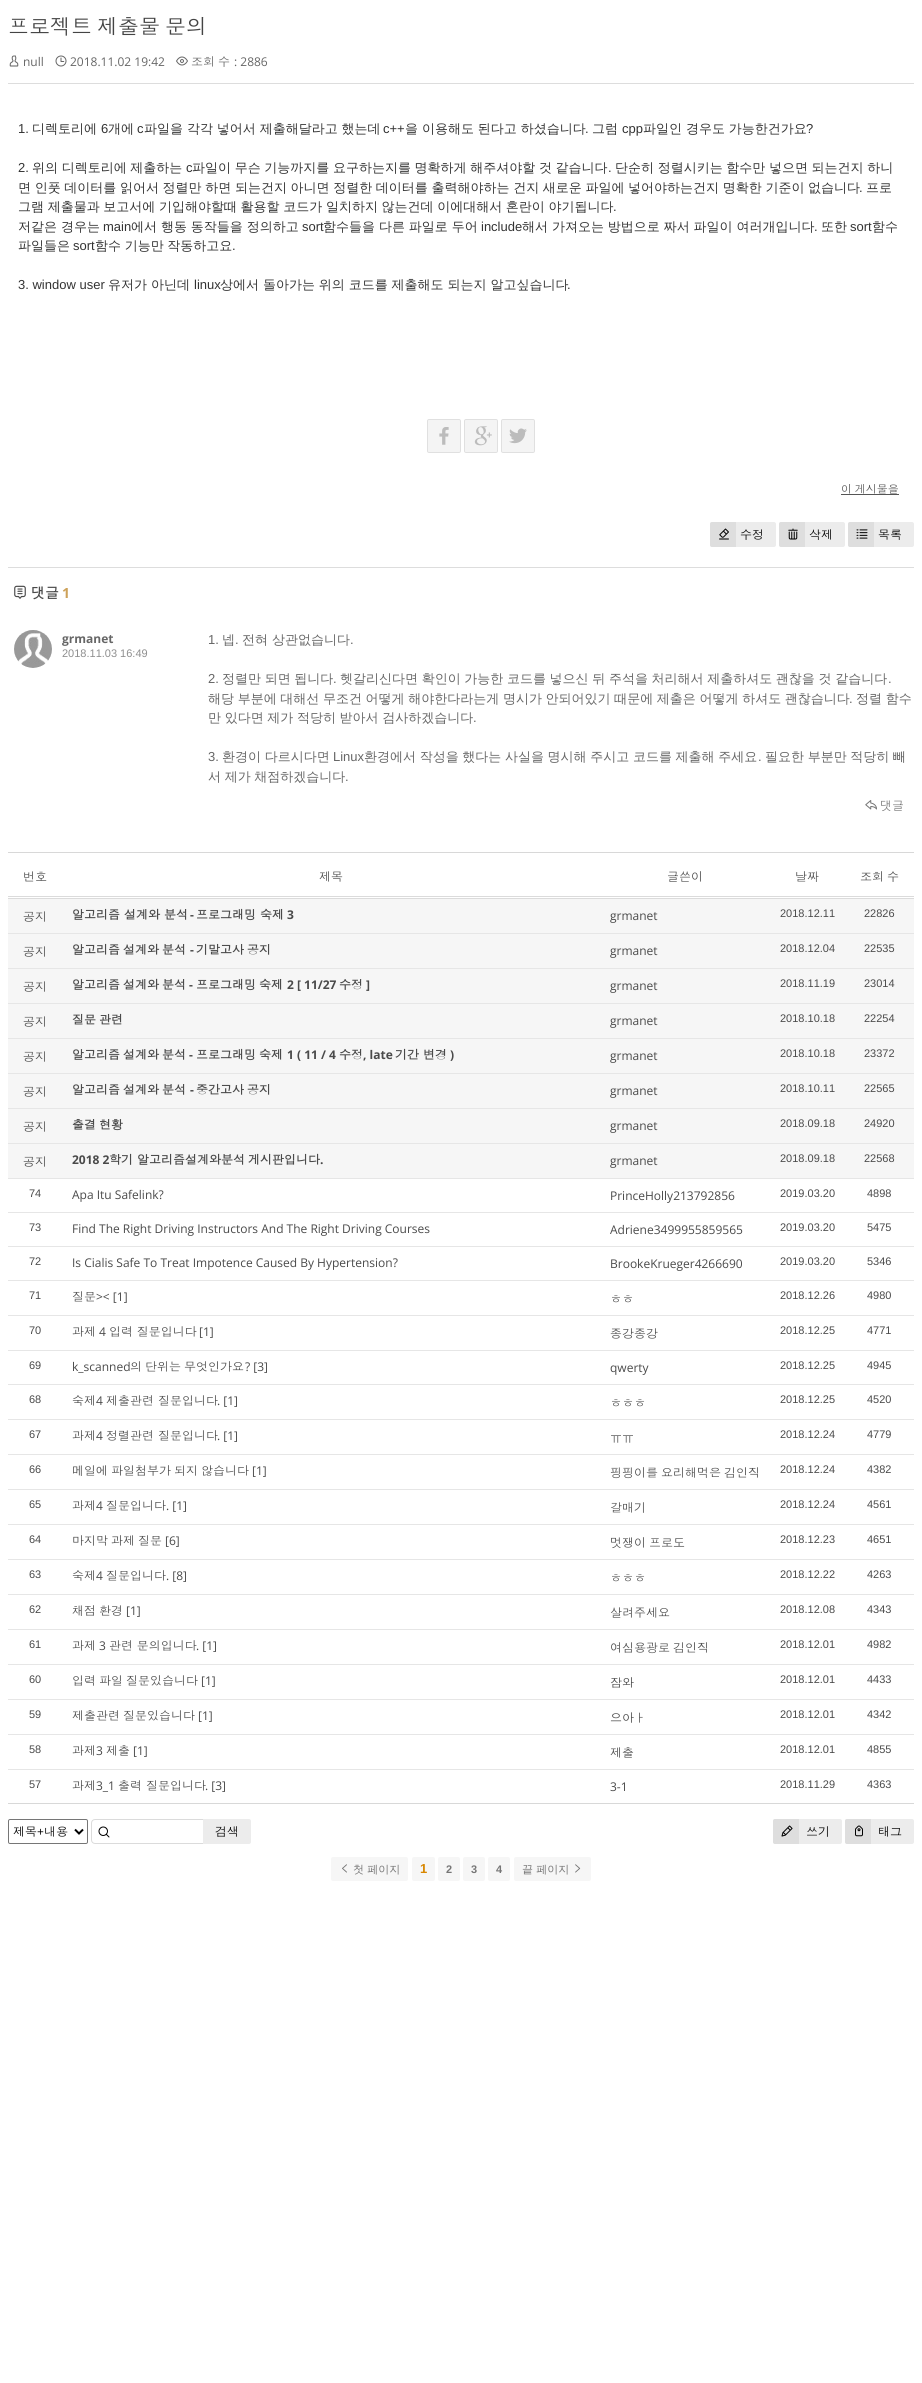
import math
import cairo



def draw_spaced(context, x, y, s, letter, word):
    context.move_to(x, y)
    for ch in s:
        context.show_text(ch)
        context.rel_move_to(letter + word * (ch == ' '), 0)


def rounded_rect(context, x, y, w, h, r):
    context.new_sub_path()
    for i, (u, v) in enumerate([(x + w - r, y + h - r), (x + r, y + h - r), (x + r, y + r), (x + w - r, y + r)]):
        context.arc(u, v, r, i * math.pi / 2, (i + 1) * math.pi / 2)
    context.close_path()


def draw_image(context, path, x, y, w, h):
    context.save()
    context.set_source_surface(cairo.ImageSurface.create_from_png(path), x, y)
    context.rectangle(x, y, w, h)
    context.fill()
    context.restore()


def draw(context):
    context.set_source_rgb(1, 1, 1)
    context.paint()
    context.set_source_rgb(221 / 255, 221 / 255, 221 / 255)
    context.rectangle(8, 83, 906, 1)
    context.fill()
    draw_image(context, "images/1.png", 9, 55, 10, 12)
    draw_image(context, "images/2.png", 55, 55, 12, 12)
    draw_image(context, "images/3.png", 176, 56, 12, 10)
    context.set_source_rgb(244 / 255, 244 / 255, 244 / 255)
    rounded_rect(context, 427.5, 419.5, 33, 33, 1.5)
    context.fill_preserve()
    context.set_source_rgb(224 / 255, 224 / 255, 224 / 255)
    context.set_line_width(1)
    context.stroke()
    draw_image(context, "images/4.png", 439, 427, 10, 18)
    context.set_source_rgb(244 / 255, 244 / 255, 244 / 255)
    rounded_rect(context, 464.5, 419.5, 33, 33, 1.5)
    context.fill_preserve()
    context.set_source_rgb(224 / 255, 224 / 255, 224 / 255)
    context.stroke()
    draw_image(context, "images/5.png", 474, 426, 18, 20)
    context.set_source_rgb(244 / 255, 244 / 255, 244 / 255)
    rounded_rect(context, 501.5, 419.5, 33, 33, 1.5)
    context.fill_preserve()
    context.set_source_rgb(224 / 255, 224 / 255, 224 / 255)
    context.stroke()
    draw_image(context, "images/6.png", 509, 428, 18, 16)
    context.set_source_rgb(85 / 255, 85 / 255, 85 / 255)
    context.rectangle(841, 494, 58, 1)
    context.fill()
    context.set_source_rgb(236 / 255, 236 / 255, 236 / 255)
    rounded_rect(context, 710, 522, 66, 25, 2)
    context.fill()
    context.set_source_rgb(222 / 255, 222 / 255, 222 / 255)
    context.new_path()
    context.move_to(712, 522)
    context.line_to(736, 522)
    context.line_to(736, 547)
    context.line_to(712, 547)
    context.curve_to(711, 547, 710, 546, 710, 545)
    context.line_to(710, 524)
    context.curve_to(710, 523, 711, 522, 712, 522)
    context.close_path()
    context.fill()
    draw_image(context, "images/7.png", 719, 528, 10, 12)
    context.set_source_rgb(236 / 255, 236 / 255, 236 / 255)
    rounded_rect(context, 779, 522, 66, 25, 2)
    context.fill()
    context.set_source_rgb(222 / 255, 222 / 255, 222 / 255)
    context.new_path()
    context.move_to(781, 522)
    context.line_to(805, 522)
    context.line_to(805, 547)
    context.line_to(781, 547)
    context.curve_to(780, 547, 779, 546, 779, 545)
    context.line_to(779, 524)
    context.curve_to(779, 523, 780, 522, 781, 522)
    context.close_path()
    context.fill()
    draw_image(context, "images/8.png", 788, 528, 10, 12)
    context.set_source_rgb(236 / 255, 236 / 255, 236 / 255)
    rounded_rect(context, 848, 522, 66, 25, 2)
    context.fill()
    context.set_source_rgb(222 / 255, 222 / 255, 222 / 255)
    context.new_path()
    context.move_to(850, 522)
    context.line_to(874, 522)
    context.line_to(874, 547)
    context.line_to(850, 547)
    context.curve_to(849, 547, 848, 546, 848, 545)
    context.line_to(848, 524)
    context.curve_to(848, 523, 849, 522, 850, 522)
    context.close_path()
    context.fill()
    draw_image(context, "images/9.png", 856, 529, 12, 10)
    context.set_source_rgb(221 / 255, 221 / 255, 221 / 255)
    context.rectangle(8, 567, 906, 1)
    context.fill()
    draw_image(context, "images/10.png", 14, 585, 12, 14)
    draw_image(context, "images/11.png", 14, 630, 38, 38)
    draw_image(context, "images/12.png", 865, 800, 12, 10)
    context.set_source_rgb(216 / 255, 216 / 255, 216 / 255)
    context.rectangle(8, 852, 906, 1)
    context.fill()
    context.rectangle(8, 1803, 906, 1)
    context.fill()
    context.set_source_rgb(219 / 255, 219 / 255, 219 / 255)
    context.rectangle(8, 896, 906, 1)
    context.fill()
    context.rectangle(8, 898, 906, 1)
    context.fill()
    context.set_source_rgb(246 / 255, 246 / 255, 246 / 255)
    context.rectangle(8, 899, 906, 34)
    context.fill()
    context.set_source_rgb(230 / 255, 230 / 255, 230 / 255)
    context.rectangle(8, 933, 906, 1)
    context.fill()
    context.set_source_rgb(246 / 255, 246 / 255, 246 / 255)
    context.rectangle(8, 934, 906, 34)
    context.fill()
    context.set_source_rgb(230 / 255, 230 / 255, 230 / 255)
    context.rectangle(8, 968, 906, 1)
    context.fill()
    context.set_source_rgb(246 / 255, 246 / 255, 246 / 255)
    context.rectangle(8, 969, 906, 34)
    context.fill()
    context.set_source_rgb(230 / 255, 230 / 255, 230 / 255)
    context.rectangle(8, 1003, 906, 1)
    context.fill()
    context.set_source_rgb(246 / 255, 246 / 255, 246 / 255)
    context.rectangle(8, 1004, 906, 34)
    context.fill()
    context.set_source_rgb(230 / 255, 230 / 255, 230 / 255)
    context.rectangle(8, 1038, 906, 1)
    context.fill()
    context.set_source_rgb(246 / 255, 246 / 255, 246 / 255)
    context.rectangle(8, 1039, 906, 34)
    context.fill()
    context.set_source_rgb(230 / 255, 230 / 255, 230 / 255)
    context.rectangle(8, 1073, 906, 1)
    context.fill()
    context.set_source_rgb(246 / 255, 246 / 255, 246 / 255)
    context.rectangle(8, 1074, 906, 34)
    context.fill()
    context.set_source_rgb(230 / 255, 230 / 255, 230 / 255)
    context.rectangle(8, 1108, 906, 1)
    context.fill()
    context.set_source_rgb(246 / 255, 246 / 255, 246 / 255)
    context.rectangle(8, 1109, 906, 34)
    context.fill()
    context.set_source_rgb(230 / 255, 230 / 255, 230 / 255)
    context.rectangle(8, 1143, 906, 1)
    context.fill()
    context.set_source_rgb(246 / 255, 246 / 255, 246 / 255)
    context.rectangle(8, 1144, 906, 34)
    context.fill()
    context.set_source_rgb(230 / 255, 230 / 255, 230 / 255)
    context.rectangle(8, 1178, 906, 1)
    context.fill()
    context.rectangle(8, 1212, 906, 1)
    context.fill()
    context.rectangle(8, 1246, 906, 1)
    context.fill()
    context.rectangle(8, 1280, 906, 1)
    context.fill()
    context.rectangle(8, 1315, 906, 1)
    context.fill()
    context.rectangle(8, 1350, 906, 1)
    context.fill()
    context.rectangle(8, 1384, 906, 1)
    context.fill()
    context.rectangle(8, 1419, 906, 1)
    context.fill()
    context.rectangle(8, 1454, 906, 1)
    context.fill()
    context.rectangle(8, 1489, 906, 1)
    context.fill()
    context.rectangle(8, 1524, 906, 1)
    context.fill()
    context.rectangle(8, 1559, 906, 1)
    context.fill()
    context.rectangle(8, 1594, 906, 1)
    context.fill()
    context.rectangle(8, 1629, 906, 1)
    context.fill()
    context.rectangle(8, 1664, 906, 1)
    context.fill()
    context.rectangle(8, 1699, 906, 1)
    context.fill()
    context.rectangle(8, 1734, 906, 1)
    context.fill()
    context.rectangle(8, 1769, 906, 1)
    context.fill()
    rounded_rect(context, 8.5, 1819.5, 79, 24, 1.5)
    context.set_source_rgb(118 / 255, 118 / 255, 118 / 255)
    context.stroke()
    context.new_path()
    context.move_to(75, 1829.5)
    context.line_to(79, 1833.5)
    context.line_to(83, 1829.5)
    context.set_source_rgb(0, 0, 0)
    context.set_line_width(2)
    context.stroke()
    draw_image(context, "images/13.png", 98, 1826, 12, 12)
    rounded_rect(context, 91.5, 1819.5, 159, 24, 3.5)
    context.set_source_rgb(219 / 255, 219 / 255, 219 / 255)
    context.set_line_width(1)
    context.stroke()
    context.set_source_rgb(236 / 255, 236 / 255, 236 / 255)
    context.new_path()
    context.move_to(203, 1819)
    context.line_to(249, 1819)
    context.curve_to(250, 1819, 251, 1820, 251, 1821)
    context.line_to(251, 1842)
    context.curve_to(251, 1843, 250, 1844, 249, 1844)
    context.line_to(203, 1844)
    context.close_path()
    context.fill()
    rounded_rect(context, 773, 1819, 69, 25, 2)
    context.fill()
    context.set_source_rgb(222 / 255, 222 / 255, 222 / 255)
    context.new_path()
    context.move_to(775, 1819)
    context.line_to(799, 1819)
    context.line_to(799, 1844)
    context.line_to(775, 1844)
    context.curve_to(774, 1844, 773, 1843, 773, 1842)
    context.line_to(773, 1821)
    context.curve_to(773, 1820, 774, 1819, 775, 1819)
    context.close_path()
    context.fill()
    draw_image(context, "images/14.png", 781, 1825, 12, 12)
    context.set_source_rgb(236 / 255, 236 / 255, 236 / 255)
    rounded_rect(context, 845, 1819, 69, 25, 2)
    context.fill()
    context.set_source_rgb(222 / 255, 222 / 255, 222 / 255)
    context.new_path()
    context.move_to(847, 1819)
    context.line_to(871, 1819)
    context.line_to(871, 1844)
    context.line_to(847, 1844)
    context.curve_to(846, 1844, 845, 1843, 845, 1842)
    context.line_to(845, 1821)
    context.curve_to(845, 1820, 846, 1819, 847, 1819)
    context.close_path()
    context.fill()
    draw_image(context, "images/15.png", 855, 1825, 8, 12)
    context.set_source_rgb(246 / 255, 246 / 255, 246 / 255)
    rounded_rect(context, 331, 1857, 77, 24, 2)
    context.fill()
    draw_image(context, "images/16.png", 342, 1864, 5, 9)
    rounded_rect(context, 412, 1857, 23, 24, 2)
    context.fill()
    rounded_rect(context, 438, 1857, 22, 24, 2)
    context.fill()
    rounded_rect(context, 463, 1857, 22, 24, 2)
    context.fill()
    rounded_rect(context, 488, 1857, 22, 24, 2)
    context.fill()
    rounded_rect(context, 514, 1857, 77, 24, 2)
    context.fill()
    draw_image(context, "images/17.png", 575, 1864, 6, 9)
    context.select_font_face("Dotum")
    context.set_font_size(21)
    context.set_source_rgb(68 / 255, 68 / 255, 68 / 255)
    draw_spaced(context, 8, 34, "프로젝트 제출물 문의", 0, -2)
    context.select_font_face("Open Sans")
    context.set_font_size(12)
    context.set_source_rgb(102 / 255, 102 / 255, 102 / 255)
    context.move_to(23, 66)
    context.show_text("null")
    context.move_to(70, 66)
    context.show_text("2018.11.02 19:42")
    context.select_font_face("Dotum")
    context.move_to(191, 66)
    context.show_text("조회")
    context.move_to(218, 66)
    context.show_text("수")
    context.select_font_face("Open Sans")
    context.move_to(234, 66)
    context.show_text(": 2886")
    context.select_font_face("Liberation Sans")
    context.set_font_size(13)
    context.set_source_rgb(51 / 255, 51 / 255, 51 / 255)
    context.move_to(18, 133)
    context.show_text("1.")
    context.select_font_face("WenQuanYi Zen Hei Medium")
    context.move_to(32, 133)
    context.show_text("디렉토리에")
    context.select_font_face("Liberation Sans")
    context.move_to(101, 133)
    context.show_text("6")
    context.select_font_face("WenQuanYi Zen Hei Medium")
    context.move_to(108, 133)
    context.show_text("개에")
    context.select_font_face("Liberation Sans")
    context.move_to(137, 133)
    context.show_text("c")
    context.select_font_face("WenQuanYi Zen Hei Medium")
    context.move_to(144, 133)
    context.show_text("파일을 각각 넣어서 제출해달라고 했는데")
    context.select_font_face("Liberation Sans")
    context.move_to(383, 133)
    context.show_text("c++")
    context.select_font_face("WenQuanYi Zen Hei Medium")
    context.move_to(405, 133)
    context.show_text("을 이용해도 된다고 하셨습니다")
    context.select_font_face("Liberation Sans")
    context.move_to(585, 133)
    context.show_text(".")
    context.select_font_face("WenQuanYi Zen Hei Medium")
    context.move_to(592, 133)
    context.show_text("그럼")
    context.select_font_face("Liberation Sans")
    context.move_to(622, 133)
    context.show_text("cpp")
    context.select_font_face("WenQuanYi Zen Hei Medium")
    context.move_to(643, 133)
    context.show_text("파일인 경우도 가능한건가요")
    context.select_font_face("Liberation Sans")
    context.move_to(806, 133)
    context.show_text("?")
    context.move_to(18, 172)
    context.show_text("2.")
    context.select_font_face("WenQuanYi Zen Hei Medium")
    draw_spaced(context, 32, 172, "위의 디렉토리에 제출하는", 0, -0.25)
    context.select_font_face("Liberation Sans")
    context.move_to(186, 172)
    context.show_text("c")
    context.select_font_face("WenQuanYi Zen Hei Medium")
    draw_spaced(context, 192, 172, "파일이 무슨 기능까지를 요구하는지를 명확하게 해주셔야할 것 같습니다", 0, -0.25)
    context.select_font_face("Liberation Sans")
    context.move_to(608, 172)
    context.show_text(".")
    context.select_font_face("WenQuanYi Zen Hei Medium")
    draw_spaced(context, 615, 172, "단순히 정렬시키는 함수만 넣으면 되는건지 하니", 0, -0.25)
    draw_spaced(context, 18, 192, "면 인풋 데이터를 읽어서 정렬만 하면 되는건지 아니면 정렬한 데이터를 출력해야하는 건지 새로운 파일에 넣어야하는건지 명확한 기준이 없습니다", 0, -0.25)
    context.select_font_face("Liberation Sans")
    context.move_to(859, 192)
    context.show_text(".")
    context.select_font_face("WenQuanYi Zen Hei Medium")
    context.move_to(866, 192)
    context.show_text("프로")
    draw_spaced(context, 18, 211, "그램 제출물과 보고서에 기입해야할때 활용할 코드가 일치하지 않는건데 이에대해서 혼란이 야기됩니다", 0, -0.25)
    context.select_font_face("Liberation Sans")
    context.move_to(613, 211)
    context.show_text(".")
    context.select_font_face("WenQuanYi Zen Hei Medium")
    context.move_to(18, 231)
    context.show_text("저같은 경우는")
    context.select_font_face("Liberation Sans")
    context.move_to(103, 231)
    context.show_text("main")
    context.select_font_face("WenQuanYi Zen Hei Medium")
    context.move_to(131, 231)
    context.show_text("에서 행동 동작들을 정의하고")
    context.select_font_face("Liberation Sans")
    context.move_to(302, 231)
    context.show_text("sort")
    context.select_font_face("WenQuanYi Zen Hei Medium")
    context.move_to(323, 231)
    context.show_text("함수들을 다른 파일로 두어")
    context.select_font_face("Liberation Sans")
    context.move_to(481, 231)
    context.show_text("include")
    context.select_font_face("WenQuanYi Zen Hei Medium")
    context.move_to(522, 231)
    context.show_text("해서 가져오는 방법으로 짜서 파일이 여러개입니다")
    context.select_font_face("Liberation Sans")
    context.move_to(814, 231)
    context.show_text(".")
    context.select_font_face("WenQuanYi Zen Hei Medium")
    context.move_to(821, 231)
    context.show_text("또한")
    context.select_font_face("Liberation Sans")
    context.move_to(850, 231)
    context.show_text("sort")
    context.select_font_face("WenQuanYi Zen Hei Medium")
    context.move_to(872, 231)
    context.show_text("함수")
    context.move_to(18, 250)
    context.show_text("파일들은")
    context.select_font_face("Liberation Sans")
    context.move_to(73, 250)
    context.show_text("sort")
    context.select_font_face("WenQuanYi Zen Hei Medium")
    draw_spaced(context, 95, 250, "함수 기능만 작동하고요", 0, -0.25)
    context.select_font_face("Liberation Sans")
    context.move_to(232, 250)
    context.show_text(".")
    context.move_to(18, 289)
    context.show_text("3. window user")
    context.select_font_face("WenQuanYi Zen Hei Medium")
    context.move_to(108, 289)
    context.show_text("유저가 아닌데")
    context.select_font_face("Liberation Sans")
    context.move_to(194, 289)
    context.show_text("linux")
    context.select_font_face("WenQuanYi Zen Hei Medium")
    context.move_to(220, 289)
    context.show_text("상에서 돌아가는 위의 코드를 제출해도 되는지 알고싶습니다")
    context.select_font_face("Liberation Sans")
    context.move_to(567, 289)
    context.show_text(".")
    context.select_font_face("Dotum")
    context.set_font_size(11)
    context.set_source_rgb(85 / 255, 85 / 255, 85 / 255)
    draw_spaced(context, 841, 493, "이 게시물을", 0, -1)
    context.set_font_size(12)
    context.set_source_rgb(0, 0, 0)
    context.move_to(740, 539)
    context.show_text("수정")
    context.move_to(809, 539)
    context.show_text("삭제")
    context.move_to(878, 539)
    context.show_text("목록")
    context.select_font_face("Dotum", cairo.FontSlant.NORMAL, cairo.FontWeight.BOLD)
    context.set_font_size(14)
    context.set_source_rgb(74 / 255, 74 / 255, 74 / 255)
    context.move_to(31, 598)
    context.show_text("댓글")
    context.select_font_face("Open Sans", cairo.FontSlant.NORMAL, cairo.FontWeight.BOLD)
    context.set_source_rgb(205 / 255, 162 / 255, 90 / 255)
    context.move_to(62, 598)
    context.show_text("1")
    context.set_font_size(12)
    context.set_source_rgb(102 / 255, 102 / 255, 102 / 255)
    context.move_to(62, 643)
    context.show_text("grmanet")
    context.select_font_face("Liberation Sans")
    context.set_font_size(11)
    context.set_source_rgb(142 / 255, 142 / 255, 142 / 255)
    context.move_to(62, 657)
    context.show_text("2018.11.03 16:49")
    context.set_font_size(13)
    context.set_source_rgb(102 / 255, 102 / 255, 102 / 255)
    context.move_to(208, 644)
    context.show_text("1.")
    context.select_font_face("WenQuanYi Zen Hei Medium")
    context.move_to(222, 644)
    context.show_text("넵")
    context.select_font_face("Liberation Sans")
    context.move_to(235, 644)
    context.show_text(".")
    context.select_font_face("WenQuanYi Zen Hei Medium")
    context.move_to(242, 644)
    context.show_text("전혀 상관없습니다")
    context.select_font_face("Liberation Sans")
    context.move_to(350, 644)
    context.show_text(".")
    context.move_to(208, 683)
    context.show_text("2.")
    context.select_font_face("WenQuanYi Zen Hei Medium")
    draw_spaced(context, 222, 683, "정렬만 되면 됩니다", 0, -0.25)
    context.select_font_face("Liberation Sans")
    context.move_to(333, 683)
    context.show_text(".")
    context.select_font_face("WenQuanYi Zen Hei Medium")
    draw_spaced(context, 340, 683, "헷갈리신다면 확인이 가능한 코드를 넣으신 뒤 주석을 처리해서 제출하셔도 괜찮을 것 같습니다", 0, -0.25)
    context.select_font_face("Liberation Sans")
    context.move_to(888, 683)
    context.show_text(".")
    context.select_font_face("WenQuanYi Zen Hei Medium")
    draw_spaced(context, 208, 703, "해당 부분에 대해선 무조건 어떻게 해야한다라는게 명시가 안되어있기 때문에 제출은 어떻게 하셔도 괜찮습니다", 0, -0.25)
    context.select_font_face("Liberation Sans")
    context.move_to(849, 703)
    context.show_text(".")
    context.select_font_face("WenQuanYi Zen Hei Medium")
    draw_spaced(context, 856, 703, "정렬 함수", 0, -0.25)
    draw_spaced(context, 208, 722, "만 있다면 제가 적당히 받아서 검사하겠습니다", 0, -0.25)
    context.select_font_face("Liberation Sans")
    context.move_to(473, 722)
    context.show_text(".")
    context.move_to(208, 761)
    context.show_text("3.")
    context.select_font_face("WenQuanYi Zen Hei Medium")
    draw_spaced(context, 222, 761, "환경이 다르시다면", 0, -0.25)
    context.select_font_face("Liberation Sans")
    context.move_to(333, 761)
    context.show_text("Linux")
    context.select_font_face("WenQuanYi Zen Hei Medium")
    draw_spaced(context, 364, 761, "환경에서 작성을 했다는 사실을 명시해 주시고 코드를 제출해 주세요", 0, -0.25)
    context.select_font_face("Liberation Sans")
    context.move_to(758, 761)
    context.show_text(".")
    context.select_font_face("WenQuanYi Zen Hei Medium")
    draw_spaced(context, 765, 761, "필요한 부분만 적당히 빼", 0, -0.25)
    draw_spaced(context, 208, 781, "서 제가 채점하겠습니다", 0, -0.25)
    context.select_font_face("Liberation Sans")
    context.move_to(345, 781)
    context.show_text(".")
    context.select_font_face("Dotum")
    context.set_font_size(12)
    context.set_source_rgb(118 / 255, 118 / 255, 118 / 255)
    context.move_to(880, 810)
    context.show_text("댓글")
    context.set_source_rgb(74 / 255, 74 / 255, 74 / 255)
    context.move_to(23, 881)
    context.show_text("번호")
    context.move_to(319, 881)
    context.show_text("제목")
    context.move_to(667, 881)
    context.show_text("글쓴이")
    context.move_to(795, 881)
    context.show_text("날짜")
    draw_spaced(context, 860, 881, "조회 수", 0, -1)
    context.move_to(23, 921)
    context.show_text("공지")
    context.select_font_face("Dotum", cairo.FontSlant.NORMAL, cairo.FontWeight.BOLD)
    context.move_to(72, 919)
    context.show_text("알고리즘 설계와 분석")
    context.select_font_face("Open Sans", cairo.FontSlant.NORMAL, cairo.FontWeight.BOLD)
    context.move_to(190, 919)
    context.show_text("-")
    context.select_font_face("Dotum", cairo.FontSlant.NORMAL, cairo.FontWeight.BOLD)
    context.move_to(196, 919)
    context.show_text("프로그래밍 숙제")
    context.select_font_face("Open Sans", cairo.FontSlant.NORMAL, cairo.FontWeight.BOLD)
    context.move_to(287, 919)
    context.show_text("3")
    context.select_font_face("Open Sans")
    context.move_to(610, 920)
    context.show_text("grmanet")
    context.select_font_face("Liberation Sans")
    context.set_font_size(11)
    context.move_to(780, 917)
    context.show_text("2018.12.11")
    context.move_to(864, 917)
    context.show_text("22826")
    context.select_font_face("Dotum")
    context.set_font_size(12)
    context.move_to(23, 956)
    context.show_text("공지")
    context.select_font_face("Dotum", cairo.FontSlant.NORMAL, cairo.FontWeight.BOLD)
    draw_spaced(context, 72, 954, "알고리즘 설계와 분석", 0, -1)
    context.select_font_face("Open Sans", cairo.FontSlant.NORMAL, cairo.FontWeight.BOLD)
    context.move_to(190, 954)
    context.show_text("-")
    context.select_font_face("Dotum", cairo.FontSlant.NORMAL, cairo.FontWeight.BOLD)
    draw_spaced(context, 196, 954, "기말고사 공지", 0, -1)
    context.select_font_face("Open Sans")
    context.move_to(610, 955)
    context.show_text("grmanet")
    context.select_font_face("Liberation Sans")
    context.set_font_size(11)
    context.move_to(780, 952)
    context.show_text("2018.12.04")
    context.move_to(864, 952)
    context.show_text("22535")
    context.select_font_face("Dotum")
    context.set_font_size(12)
    context.move_to(23, 991)
    context.show_text("공지")
    context.select_font_face("Dotum", cairo.FontSlant.NORMAL, cairo.FontWeight.BOLD)
    context.move_to(72, 989)
    context.show_text("알고리즘")
    context.move_to(123, 989)
    context.show_text("설계와")
    context.move_to(162, 989)
    context.show_text("분석")
    context.select_font_face("Open Sans", cairo.FontSlant.NORMAL, cairo.FontWeight.BOLD)
    context.move_to(189, 989)
    context.show_text("-")
    context.select_font_face("Dotum", cairo.FontSlant.NORMAL, cairo.FontWeight.BOLD)
    context.move_to(196, 989)
    context.show_text("프로그래밍")
    context.move_to(259, 989)
    context.show_text("숙제")
    context.select_font_face("Open Sans", cairo.FontSlant.NORMAL, cairo.FontWeight.BOLD)
    context.move_to(287, 989)
    context.show_text("2 [ 11/27")
    context.select_font_face("Dotum", cairo.FontSlant.NORMAL, cairo.FontWeight.BOLD)
    context.move_to(339, 989)
    context.show_text("수정")
    context.select_font_face("Open Sans", cairo.FontSlant.NORMAL, cairo.FontWeight.BOLD)
    context.move_to(366, 989)
    context.show_text("]")
    context.select_font_face("Open Sans")
    context.move_to(610, 990)
    context.show_text("grmanet")
    context.select_font_face("Liberation Sans")
    context.set_font_size(11)
    context.move_to(780, 987)
    context.show_text("2018.11.19")
    context.move_to(864, 987)
    context.show_text("23014")
    context.select_font_face("Dotum")
    context.set_font_size(12)
    context.move_to(23, 1026)
    context.show_text("공지")
    context.select_font_face("Dotum", cairo.FontSlant.NORMAL, cairo.FontWeight.BOLD)
    draw_spaced(context, 72, 1024, "질문 관련", 0, -1)
    context.select_font_face("Open Sans")
    context.move_to(610, 1025)
    context.show_text("grmanet")
    context.select_font_face("Liberation Sans")
    context.set_font_size(11)
    context.move_to(780, 1022)
    context.show_text("2018.10.18")
    context.move_to(864, 1022)
    context.show_text("22254")
    context.select_font_face("Dotum")
    context.set_font_size(12)
    context.move_to(23, 1061)
    context.show_text("공지")
    context.select_font_face("Dotum", cairo.FontSlant.NORMAL, cairo.FontWeight.BOLD)
    context.move_to(72, 1059)
    context.show_text("알고리즘")
    context.move_to(123, 1059)
    context.show_text("설계와")
    context.move_to(162, 1059)
    context.show_text("분석")
    context.select_font_face("Open Sans", cairo.FontSlant.NORMAL, cairo.FontWeight.BOLD)
    context.move_to(189, 1059)
    context.show_text("-")
    context.select_font_face("Dotum", cairo.FontSlant.NORMAL, cairo.FontWeight.BOLD)
    context.move_to(196, 1059)
    context.show_text("프로그래밍")
    context.move_to(259, 1059)
    context.show_text("숙제")
    context.select_font_face("Open Sans", cairo.FontSlant.NORMAL, cairo.FontWeight.BOLD)
    context.move_to(287, 1059)
    context.show_text("1 ( 11 / 4")
    context.select_font_face("Dotum", cairo.FontSlant.NORMAL, cairo.FontWeight.BOLD)
    context.move_to(339, 1059)
    context.show_text("수정")
    context.select_font_face("Open Sans", cairo.FontSlant.NORMAL, cairo.FontWeight.BOLD)
    context.move_to(363, 1059)
    context.show_text(", late")
    context.select_font_face("Dotum", cairo.FontSlant.NORMAL, cairo.FontWeight.BOLD)
    context.move_to(395, 1059)
    context.show_text("기간")
    context.move_to(423, 1059)
    context.show_text("변경")
    context.select_font_face("Open Sans", cairo.FontSlant.NORMAL, cairo.FontWeight.BOLD)
    context.move_to(450, 1059)
    context.show_text(")")
    context.select_font_face("Open Sans")
    context.move_to(610, 1060)
    context.show_text("grmanet")
    context.select_font_face("Liberation Sans")
    context.set_font_size(11)
    context.move_to(780, 1057)
    context.show_text("2018.10.18")
    context.move_to(864, 1057)
    context.show_text("23372")
    context.select_font_face("Dotum")
    context.set_font_size(12)
    context.move_to(23, 1096)
    context.show_text("공지")
    context.select_font_face("Dotum", cairo.FontSlant.NORMAL, cairo.FontWeight.BOLD)
    draw_spaced(context, 72, 1094, "알고리즘 설계와 분석", 0, -1)
    context.select_font_face("Open Sans", cairo.FontSlant.NORMAL, cairo.FontWeight.BOLD)
    context.move_to(190, 1094)
    context.show_text("-")
    context.select_font_face("Dotum", cairo.FontSlant.NORMAL, cairo.FontWeight.BOLD)
    draw_spaced(context, 196, 1094, "중간고사 공지", 0, -1)
    context.select_font_face("Open Sans")
    context.move_to(610, 1095)
    context.show_text("grmanet")
    context.select_font_face("Liberation Sans")
    context.set_font_size(11)
    context.move_to(780, 1092)
    context.show_text("2018.10.11")
    context.move_to(864, 1092)
    context.show_text("22565")
    context.select_font_face("Dotum")
    context.set_font_size(12)
    context.move_to(23, 1131)
    context.show_text("공지")
    context.select_font_face("Dotum", cairo.FontSlant.NORMAL, cairo.FontWeight.BOLD)
    draw_spaced(context, 72, 1129, "출결 현황", 0, -1)
    context.select_font_face("Open Sans")
    context.move_to(610, 1130)
    context.show_text("grmanet")
    context.select_font_face("Liberation Sans")
    context.set_font_size(11)
    context.move_to(780, 1127)
    context.show_text("2018.09.18")
    context.move_to(864, 1127)
    context.show_text("24920")
    context.select_font_face("Dotum")
    context.set_font_size(12)
    context.move_to(23, 1166)
    context.show_text("공지")
    context.select_font_face("Open Sans", cairo.FontSlant.NORMAL, cairo.FontWeight.BOLD)
    context.move_to(72, 1164)
    context.show_text("2018 2")
    context.select_font_face("Dotum", cairo.FontSlant.NORMAL, cairo.FontWeight.BOLD)
    context.move_to(109, 1164)
    context.show_text("학기")
    context.move_to(137, 1164)
    context.show_text("알고리즘설계와분석")
    context.move_to(248, 1164)
    context.show_text("게시판입니다")
    context.select_font_face("Open Sans", cairo.FontSlant.NORMAL, cairo.FontWeight.BOLD)
    context.move_to(320, 1164)
    context.show_text(".")
    context.select_font_face("Open Sans")
    context.move_to(610, 1165)
    context.show_text("grmanet")
    context.select_font_face("Liberation Sans")
    context.set_font_size(11)
    context.move_to(780, 1162)
    context.show_text("2018.09.18")
    context.move_to(864, 1162)
    context.show_text("22568")
    context.move_to(29, 1197)
    context.show_text("74")
    context.select_font_face("Open Sans")
    context.set_font_size(12)
    context.move_to(72, 1199)
    context.show_text("Apa Itu Safelink?")
    context.move_to(610, 1200)
    context.show_text("PrinceHolly213792856")
    context.select_font_face("Liberation Sans")
    context.set_font_size(11)
    context.move_to(780, 1197)
    context.show_text("2019.03.20")
    context.move_to(867, 1197)
    context.show_text("4898")
    context.move_to(29, 1231)
    context.show_text("73")
    context.select_font_face("Open Sans")
    context.set_font_size(12)
    context.move_to(72, 1233)
    context.show_text("Find The Right Driving Instructors And The Right Driving Courses")
    context.move_to(610, 1234)
    context.show_text("Adriene3499955859565")
    context.select_font_face("Liberation Sans")
    context.set_font_size(11)
    context.move_to(780, 1231)
    context.show_text("2019.03.20")
    context.move_to(867, 1231)
    context.show_text("5475")
    context.move_to(29, 1265)
    context.show_text("72")
    context.select_font_face("Open Sans")
    context.set_font_size(12)
    context.move_to(72, 1267)
    context.show_text("Is Cialis Safe To Treat Impotence Caused By Hypertension?")
    context.move_to(610, 1268)
    context.show_text("BrookeKrueger4266690")
    context.select_font_face("Liberation Sans")
    context.set_font_size(11)
    context.move_to(780, 1265)
    context.show_text("2019.03.20")
    context.move_to(867, 1265)
    context.show_text("5346")
    context.move_to(29, 1299)
    context.show_text("71")
    context.select_font_face("Dotum")
    context.set_font_size(12)
    context.move_to(72, 1301)
    context.show_text("질문")
    context.select_font_face("Open Sans")
    context.move_to(96, 1301)
    context.show_text(">< [1]")
    context.select_font_face("Dotum")
    context.move_to(610, 1303)
    context.show_text("ㅎㅎ")
    context.select_font_face("Liberation Sans")
    context.set_font_size(11)
    context.move_to(780, 1299)
    context.show_text("2018.12.26")
    context.move_to(867, 1299)
    context.show_text("4980")
    context.move_to(29, 1334)
    context.show_text("70")
    context.select_font_face("Dotum")
    context.set_font_size(12)
    context.move_to(72, 1336)
    context.show_text("과제")
    context.select_font_face("Open Sans")
    context.move_to(99, 1336)
    context.show_text("4")
    context.select_font_face("Dotum")
    draw_spaced(context, 109, 1336, "입력 질문입니다", 0, -0.25)
    context.select_font_face("Open Sans")
    context.move_to(199, 1336)
    context.show_text("[1]")
    context.select_font_face("Dotum")
    context.move_to(610, 1338)
    context.show_text("종강종강")
    context.select_font_face("Liberation Sans")
    context.set_font_size(11)
    context.move_to(780, 1334)
    context.show_text("2018.12.25")
    context.move_to(867, 1334)
    context.show_text("4771")
    context.move_to(29, 1369)
    context.show_text("69")
    context.select_font_face("Open Sans")
    context.set_font_size(12)
    context.move_to(72, 1371)
    context.show_text("k_scanned")
    context.select_font_face("Dotum")
    draw_spaced(context, 130, 1371, "의 단위는 무엇인가요", 0, -1)
    context.select_font_face("Open Sans")
    context.move_to(245, 1371)
    context.show_text("? [3]")
    context.move_to(610, 1372)
    context.show_text("qwerty")
    context.select_font_face("Liberation Sans")
    context.set_font_size(11)
    context.move_to(780, 1369)
    context.show_text("2018.12.25")
    context.move_to(867, 1369)
    context.show_text("4945")
    context.move_to(29, 1403)
    context.show_text("68")
    context.select_font_face("Dotum")
    context.set_font_size(12)
    context.move_to(72, 1405)
    context.show_text("숙제")
    context.select_font_face("Open Sans")
    context.move_to(96, 1405)
    context.show_text("4")
    context.select_font_face("Dotum")
    context.move_to(106, 1405)
    context.show_text("제출관련 질문입니다")
    context.select_font_face("Open Sans")
    context.move_to(217, 1405)
    context.show_text(". [1]")
    context.select_font_face("Dotum")
    context.move_to(610, 1407)
    context.show_text("ㅎㅎㅎ")
    context.select_font_face("Liberation Sans")
    context.set_font_size(11)
    context.move_to(780, 1403)
    context.show_text("2018.12.25")
    context.move_to(867, 1403)
    context.show_text("4520")
    context.move_to(29, 1438)
    context.show_text("67")
    context.select_font_face("Dotum")
    context.set_font_size(12)
    context.move_to(72, 1440)
    context.show_text("과제")
    context.select_font_face("Open Sans")
    context.move_to(96, 1440)
    context.show_text("4")
    context.select_font_face("Dotum")
    context.move_to(106, 1440)
    context.show_text("정렬관련 질문입니다")
    context.select_font_face("Open Sans")
    context.move_to(217, 1440)
    context.show_text(". [1]")
    context.select_font_face("Dotum")
    context.move_to(610, 1442)
    context.show_text("ㅠㅠ")
    context.select_font_face("Liberation Sans")
    context.set_font_size(11)
    context.move_to(780, 1438)
    context.show_text("2018.12.24")
    context.move_to(867, 1438)
    context.show_text("4779")
    context.move_to(29, 1473)
    context.show_text("66")
    context.select_font_face("Dotum")
    context.set_font_size(12)
    draw_spaced(context, 72, 1475, "메일에 파일첨부가 되지 않습니다", 0, -1)
    context.select_font_face("Open Sans")
    context.move_to(252, 1475)
    context.show_text("[1]")
    context.select_font_face("Dotum")
    draw_spaced(context, 610, 1477, "핑핑이를 요리해먹은 김인직", 0, -1)
    context.select_font_face("Liberation Sans")
    context.set_font_size(11)
    context.move_to(780, 1473)
    context.show_text("2018.12.24")
    context.move_to(867, 1473)
    context.show_text("4382")
    context.move_to(29, 1508)
    context.show_text("65")
    context.select_font_face("Dotum")
    context.set_font_size(12)
    context.move_to(72, 1510)
    context.show_text("과제")
    context.select_font_face("Open Sans")
    context.move_to(96, 1510)
    context.show_text("4")
    context.select_font_face("Dotum")
    context.move_to(106, 1510)
    context.show_text("질문입니다")
    context.select_font_face("Open Sans")
    context.move_to(166, 1510)
    context.show_text(". [1]")
    context.select_font_face("Dotum")
    context.move_to(610, 1512)
    context.show_text("갈매기")
    context.select_font_face("Liberation Sans")
    context.set_font_size(11)
    context.move_to(780, 1508)
    context.show_text("2018.12.24")
    context.move_to(867, 1508)
    context.show_text("4561")
    context.move_to(29, 1543)
    context.show_text("64")
    context.select_font_face("Dotum")
    context.set_font_size(12)
    draw_spaced(context, 72, 1545, "마지막 과제 질문", 0, -1)
    context.select_font_face("Open Sans")
    context.move_to(165, 1545)
    context.show_text("[6]")
    context.select_font_face("Dotum")
    draw_spaced(context, 610, 1547, "멋쟁이 프로도", 0, -1)
    context.select_font_face("Liberation Sans")
    context.set_font_size(11)
    context.move_to(780, 1543)
    context.show_text("2018.12.23")
    context.move_to(867, 1543)
    context.show_text("4651")
    context.move_to(29, 1578)
    context.show_text("63")
    context.select_font_face("Dotum")
    context.set_font_size(12)
    context.move_to(72, 1580)
    context.show_text("숙제")
    context.select_font_face("Open Sans")
    context.move_to(96, 1580)
    context.show_text("4")
    context.select_font_face("Dotum")
    context.move_to(106, 1580)
    context.show_text("질문입니다")
    context.select_font_face("Open Sans")
    context.move_to(166, 1580)
    context.show_text(". [8]")
    context.select_font_face("Dotum")
    context.move_to(610, 1582)
    context.show_text("ㅎㅎㅎ")
    context.select_font_face("Liberation Sans")
    context.set_font_size(11)
    context.move_to(780, 1578)
    context.show_text("2018.12.22")
    context.move_to(867, 1578)
    context.show_text("4263")
    context.move_to(29, 1613)
    context.show_text("62")
    context.select_font_face("Dotum")
    context.set_font_size(12)
    draw_spaced(context, 72, 1615, "채점 환경", 0, -1)
    context.select_font_face("Open Sans")
    context.move_to(126, 1615)
    context.show_text("[1]")
    context.select_font_face("Dotum")
    context.move_to(610, 1617)
    context.show_text("살려주세요")
    context.select_font_face("Liberation Sans")
    context.set_font_size(11)
    context.move_to(780, 1613)
    context.show_text("2018.12.08")
    context.move_to(867, 1613)
    context.show_text("4343")
    context.move_to(29, 1648)
    context.show_text("61")
    context.select_font_face("Dotum")
    context.set_font_size(12)
    context.move_to(72, 1650)
    context.show_text("과제")
    context.select_font_face("Open Sans")
    context.move_to(99, 1650)
    context.show_text("3")
    context.select_font_face("Dotum")
    draw_spaced(context, 109, 1650, "관련 문의입니다", 0, -0.25)
    context.select_font_face("Open Sans")
    context.move_to(196, 1650)
    context.show_text(". [1]")
    context.select_font_face("Dotum")
    draw_spaced(context, 610, 1652, "여심용광로 김인직", 0, -1)
    context.select_font_face("Liberation Sans")
    context.set_font_size(11)
    context.move_to(780, 1648)
    context.show_text("2018.12.01")
    context.move_to(867, 1648)
    context.show_text("4982")
    context.move_to(29, 1683)
    context.show_text("60")
    context.select_font_face("Dotum")
    context.set_font_size(12)
    draw_spaced(context, 72, 1685, "입력 파일 질문있습니다", 0, -1)
    context.select_font_face("Open Sans")
    context.move_to(201, 1685)
    context.show_text("[1]")
    context.select_font_face("Dotum")
    context.move_to(610, 1687)
    context.show_text("잠와")
    context.select_font_face("Liberation Sans")
    context.set_font_size(11)
    context.move_to(780, 1683)
    context.show_text("2018.12.01")
    context.move_to(867, 1683)
    context.show_text("4433")
    context.move_to(29, 1718)
    context.show_text("59")
    context.select_font_face("Dotum")
    context.set_font_size(12)
    draw_spaced(context, 72, 1720, "제출관련 질문있습니다", 0, -1)
    context.select_font_face("Open Sans")
    context.move_to(198, 1720)
    context.show_text("[1]")
    context.select_font_face("Dotum")
    context.move_to(610, 1722)
    context.show_text("으아ㅏ")
    context.select_font_face("Liberation Sans")
    context.set_font_size(11)
    context.move_to(780, 1718)
    context.show_text("2018.12.01")
    context.move_to(867, 1718)
    context.show_text("4342")
    context.move_to(29, 1753)
    context.show_text("58")
    context.select_font_face("Dotum")
    context.set_font_size(12)
    context.move_to(72, 1755)
    context.show_text("과제")
    context.select_font_face("Open Sans")
    context.move_to(96, 1755)
    context.show_text("3")
    context.select_font_face("Dotum")
    context.move_to(106, 1755)
    context.show_text("제출")
    context.select_font_face("Open Sans")
    context.move_to(133, 1755)
    context.show_text("[1]")
    context.select_font_face("Dotum")
    context.move_to(610, 1757)
    context.show_text("제출")
    context.select_font_face("Liberation Sans")
    context.set_font_size(11)
    context.move_to(780, 1753)
    context.show_text("2018.12.01")
    context.move_to(867, 1753)
    context.show_text("4855")
    context.move_to(29, 1788)
    context.show_text("57")
    context.select_font_face("Dotum")
    context.set_font_size(12)
    context.move_to(72, 1790)
    context.show_text("과제")
    context.select_font_face("Open Sans")
    context.move_to(96, 1790)
    context.show_text("3_1")
    context.select_font_face("Dotum")
    context.move_to(118, 1790)
    context.show_text("출력 질문입니다")
    context.select_font_face("Open Sans")
    context.move_to(205, 1790)
    context.show_text(". [3]")
    context.move_to(610, 1791)
    context.show_text("3-1")
    context.select_font_face("Liberation Sans")
    context.set_font_size(11)
    context.move_to(780, 1788)
    context.show_text("2018.11.29")
    context.move_to(867, 1788)
    context.show_text("4363")
    context.select_font_face("Dotum")
    context.set_font_size(12)
    context.set_source_rgb(0, 0, 0)
    context.move_to(13, 1836)
    context.show_text("제목")
    context.select_font_face("Open Sans")
    context.move_to(37, 1836)
    context.show_text("+")
    context.select_font_face("Dotum")
    context.move_to(44, 1836)
    context.show_text("내용")
    context.move_to(215, 1836)
    context.show_text("검색")
    context.move_to(806, 1836)
    context.show_text("쓰기")
    context.move_to(878, 1836)
    context.show_text("태그")
    context.select_font_face("WenQuanYi Zen Hei Medium")
    context.set_font_size(11)
    context.set_source_rgb(118 / 255, 118 / 255, 118 / 255)
    context.move_to(353, 1873)
    context.show_text("첫 페이지")
    context.select_font_face("Liberation Sans", cairo.FontSlant.NORMAL, cairo.FontWeight.BOLD)
    context.set_font_size(13)
    context.set_source_rgb(216 / 255, 135 / 255, 0)
    context.move_to(420, 1873)
    context.show_text("1")
    context.set_font_size(11)
    context.set_source_rgb(118 / 255, 118 / 255, 118 / 255)
    context.move_to(446, 1873)
    context.show_text("2")
    context.move_to(471, 1873)
    context.show_text("3")
    context.move_to(496, 1873)
    context.show_text("4")
    context.select_font_face("WenQuanYi Zen Hei Medium")
    context.move_to(522, 1873)
    context.show_text("끝 페이지")


surface = cairo.ImageSurface(cairo.Format.RGB24, 922, 2383)
context = cairo.Context(surface)
options = cairo.FontOptions()
options.set_hint_metrics(cairo.HintMetrics.OFF)
options.set_hint_style(cairo.HintStyle.NONE)
context.set_font_options(options)
context.set_miter_limit(4)
draw(context)
surface.write_to_png("out.png")
